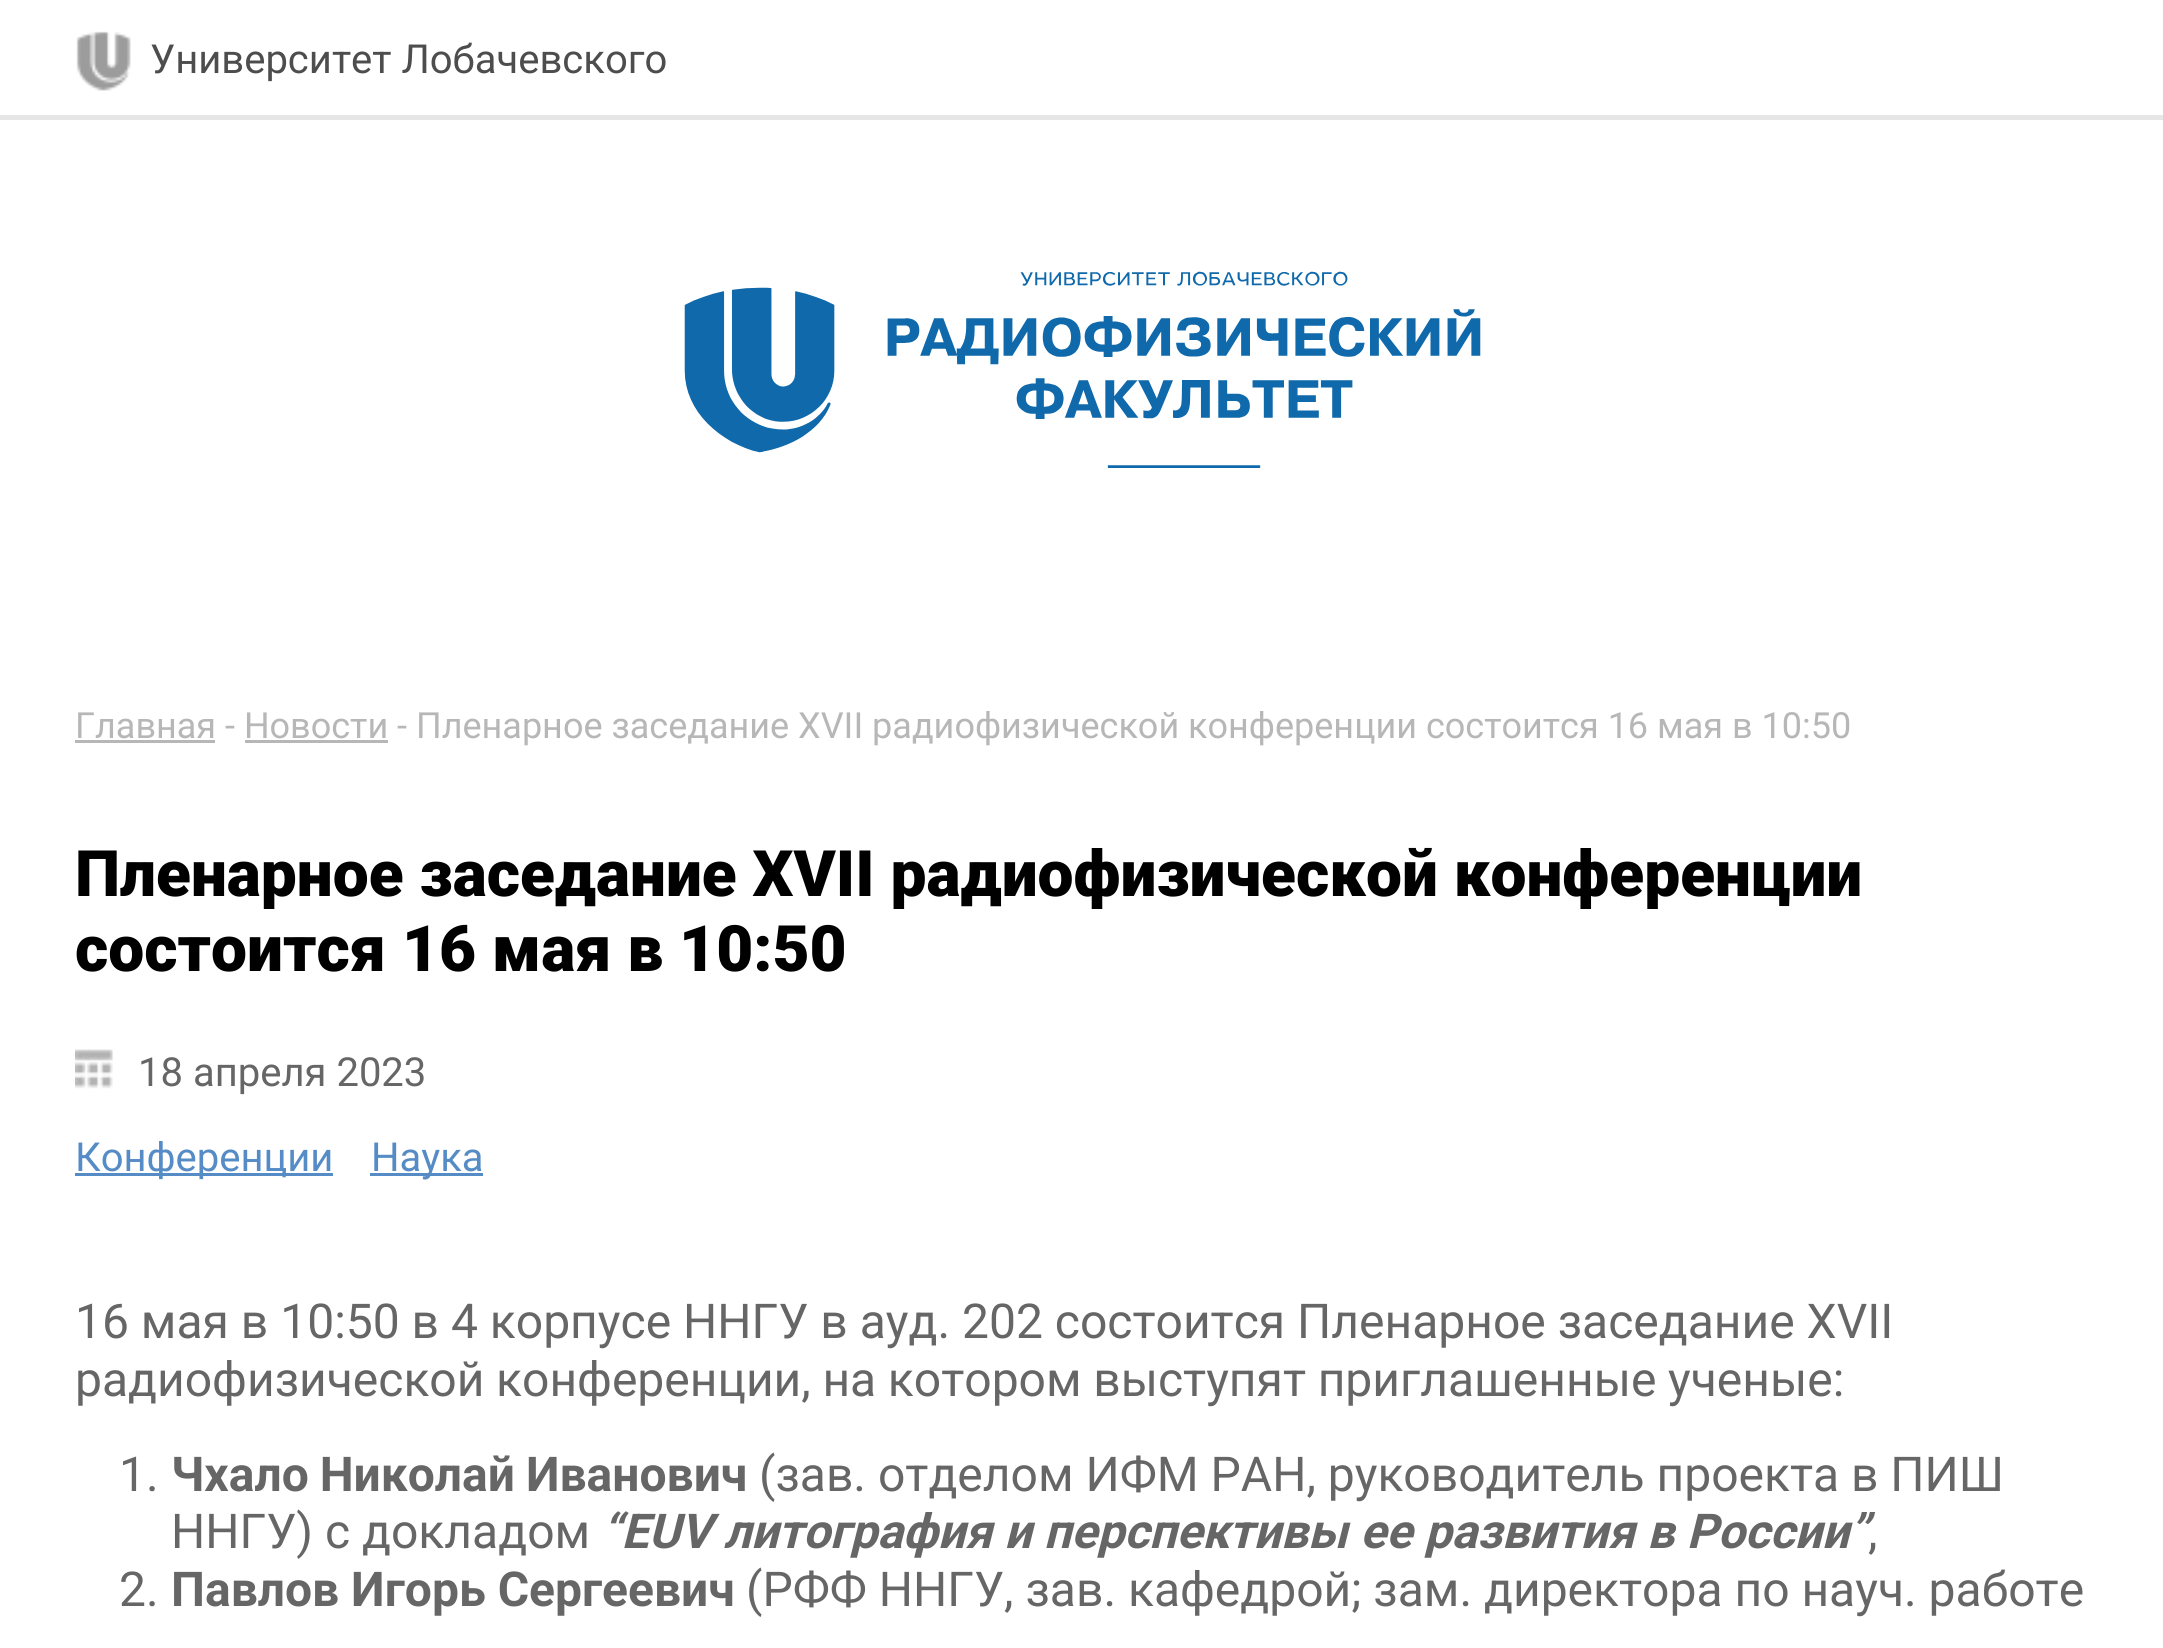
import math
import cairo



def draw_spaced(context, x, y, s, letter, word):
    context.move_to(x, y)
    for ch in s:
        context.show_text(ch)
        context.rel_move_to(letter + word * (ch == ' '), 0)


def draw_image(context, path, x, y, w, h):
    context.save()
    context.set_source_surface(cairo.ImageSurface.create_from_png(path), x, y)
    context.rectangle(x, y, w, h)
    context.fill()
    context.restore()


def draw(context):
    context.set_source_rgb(1, 1, 1)
    context.paint()
    context.set_source_rgb(230 / 255, 230 / 255, 230 / 255)
    context.rectangle(0, 115, 2163, 5)
    context.fill()
    draw_image(context, "images/1.png", 76, 31, 55, 60)
    draw_image(context, "images/2.png", 684, 271, 797, 197)
    context.set_source_rgb(183 / 255, 183 / 255, 183 / 255)
    context.rectangle(75, 740, 140, 3)
    context.fill()
    context.rectangle(245, 740, 143, 3)
    context.fill()
    draw_image(context, "images/3.png", 75, 1049, 38, 40)
    context.set_source_rgb(85 / 255, 140 / 255, 198 / 255)
    context.rectangle(75, 1173, 258, 3)
    context.fill()
    context.rectangle(370, 1173, 113, 3)
    context.fill()
    context.select_font_face("Roboto")
    context.set_font_size(40)
    context.set_source_rgb(77 / 255, 77 / 255, 77 / 255)
    context.move_to(150, 73)
    context.show_text("Университет Лобачевского")
    context.set_font_size(36)
    context.set_source_rgb(183 / 255, 183 / 255, 183 / 255)
    context.move_to(75, 738)
    context.show_text("Главная - Новости - Пленарное заседание XVII радиофизической конференции состоится 16 мая в 10:50")
    context.select_font_face("Roboto Black")
    context.set_font_size(64)
    context.set_source_rgb(0, 0, 0)
    context.move_to(75, 896)
    context.show_text("Пленарное заседание XVII радиофизической конференции")
    context.move_to(75, 971)
    context.show_text("состоится 16 мая в 10:50")
    context.select_font_face("Roboto")
    context.set_font_size(40)
    context.set_source_rgb(102 / 255, 102 / 255, 102 / 255)
    context.move_to(138, 1086)
    context.show_text("18 апреля 2023")
    context.set_source_rgb(85 / 255, 140 / 255, 198 / 255)
    context.move_to(75, 1171)
    context.show_text("Конференции")
    context.move_to(371, 1171)
    context.show_text("Наука")
    context.set_font_size(48)
    context.set_source_rgb(102 / 255, 102 / 255, 102 / 255)
    context.move_to(75, 1338)
    context.show_text("16 мая в 10:50 в 4 корпусе ННГУ в ауд. 202 состоится Пленарное заседание XVII")
    draw_spaced(context, 75, 1396, "радиофизической конференции, на котором выступят приглашенные ученые:", 0, -0.25)
    context.move_to(119, 1491)
    context.show_text("1.")
    context.select_font_face("Roboto", cairo.FontSlant.NORMAL, cairo.FontWeight.BOLD)
    draw_spaced(context, 171, 1491, "Чхало Николай Иванович", 0, -1)
    context.select_font_face("Roboto")
    context.move_to(759, 1491)
    context.show_text("(зав. отделом ИФМ РАН, руководитель проекта в ПИШ")
    context.move_to(171, 1548)
    context.show_text("ННГУ) с докладом")
    context.select_font_face("Roboto", cairo.FontSlant.ITALIC, cairo.FontWeight.BOLD)
    draw_spaced(context, 602, 1548, "“EUV литография и перспективы ее развития в России”", 0, 0.5)
    context.select_font_face("Roboto")
    context.move_to(1868, 1548)
    context.show_text(",")
    context.move_to(119, 1606)
    context.show_text("2.")
    context.select_font_face("Roboto", cairo.FontSlant.NORMAL, cairo.FontWeight.BOLD)
    context.move_to(171, 1606)
    context.show_text("Павлов Игорь Сергеевич")
    context.select_font_face("Roboto")
    context.move_to(746, 1606)
    context.show_text("(РФФ ННГУ, зав. кафедрой; зам. директора по науч. работе")


surface = cairo.ImageSurface(cairo.Format.RGB24, 2163, 1648)
context = cairo.Context(surface)
options = cairo.FontOptions()
options.set_hint_metrics(cairo.HintMetrics.OFF)
options.set_hint_style(cairo.HintStyle.NONE)
context.set_font_options(options)
context.set_miter_limit(4)
draw(context)
surface.write_to_png("out.png")
